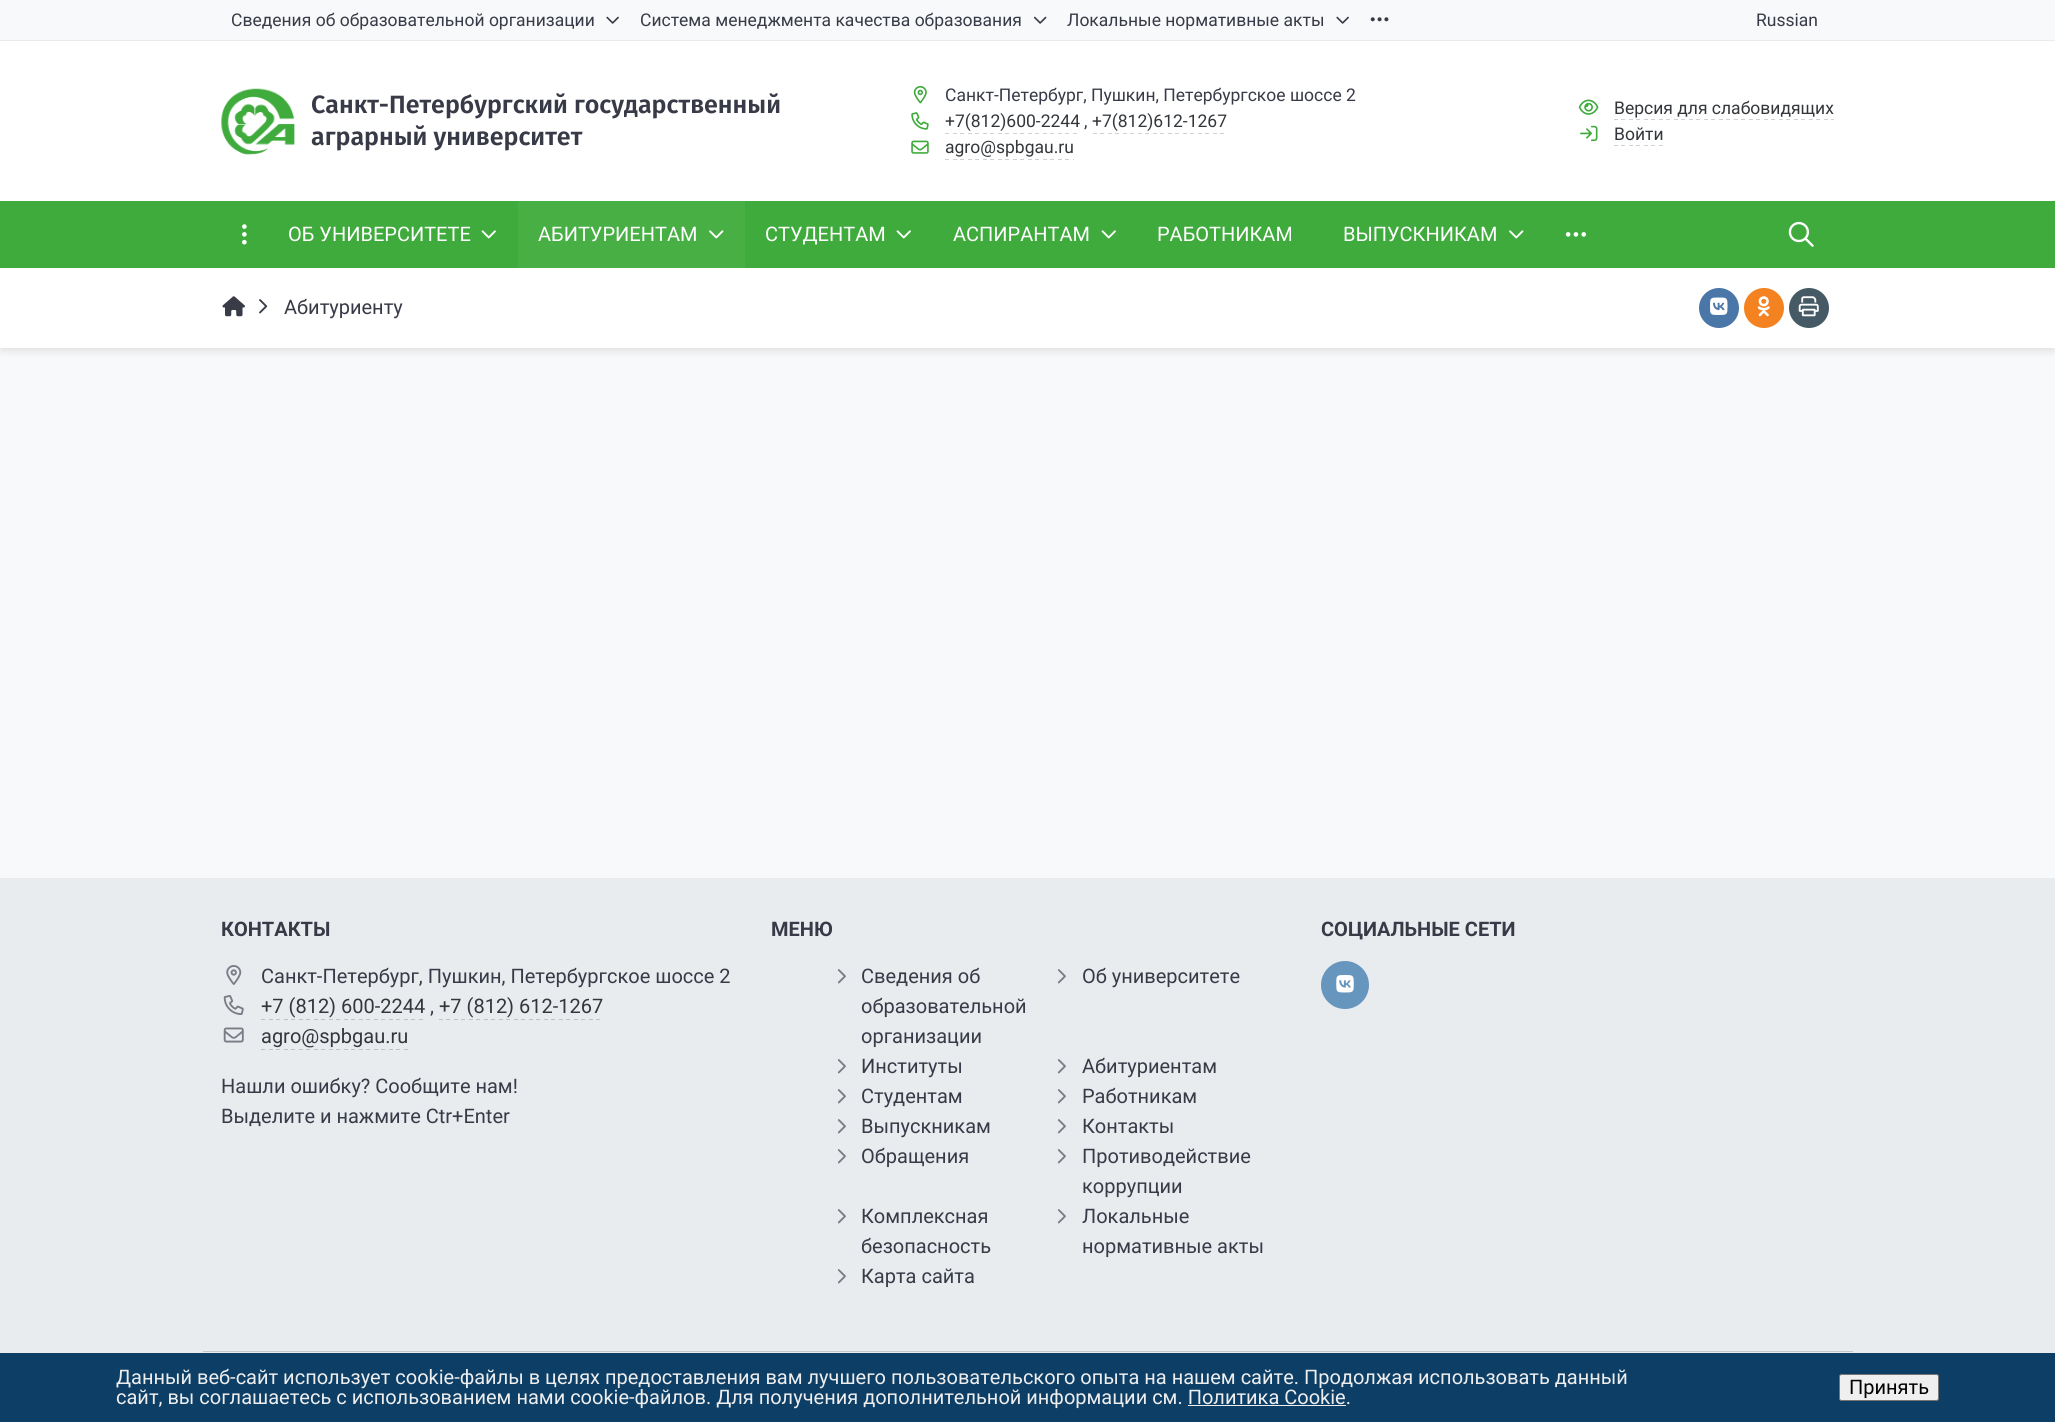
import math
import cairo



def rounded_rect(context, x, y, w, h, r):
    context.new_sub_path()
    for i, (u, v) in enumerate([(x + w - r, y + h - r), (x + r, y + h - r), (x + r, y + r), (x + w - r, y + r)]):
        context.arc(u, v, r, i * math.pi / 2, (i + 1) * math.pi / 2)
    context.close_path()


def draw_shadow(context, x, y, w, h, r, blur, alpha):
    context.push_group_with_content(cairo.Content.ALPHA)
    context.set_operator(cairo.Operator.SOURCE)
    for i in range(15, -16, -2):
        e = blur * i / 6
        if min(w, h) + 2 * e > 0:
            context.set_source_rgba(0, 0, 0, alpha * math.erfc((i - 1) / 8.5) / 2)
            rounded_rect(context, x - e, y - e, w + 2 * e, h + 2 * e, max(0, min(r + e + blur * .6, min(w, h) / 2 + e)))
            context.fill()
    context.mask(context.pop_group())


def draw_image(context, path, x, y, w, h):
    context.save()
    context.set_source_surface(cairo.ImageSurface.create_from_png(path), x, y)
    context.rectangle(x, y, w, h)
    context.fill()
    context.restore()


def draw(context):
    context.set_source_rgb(248 / 255, 249 / 255, 250 / 255)
    context.paint()
    context.set_source_rgb(1, 1, 1)
    context.rectangle(0, 41, 2055, 307)
    context.fill()
    context.set_source_rgb(235 / 255, 235 / 255, 235 / 255)
    context.rectangle(0, 40, 2055, 1)
    context.fill()
    draw_image(context, "images/1.png", 606, 16, 13, 8)
    draw_image(context, "images/2.png", 1033, 16, 14, 8)
    draw_image(context, "images/1.png", 1336, 16, 13, 8)
    draw_image(context, "images/3.png", 1370, 17, 19, 5)
    draw_image(context, "images/4.png", 221, 88, 74, 67)
    draw_image(context, "images/5.png", 913, 85, 14, 19)
    draw_image(context, "images/6.png", 911, 112, 18, 18)
    context.set_source_rgb(208 / 255, 209 / 255, 210 / 255)
    context.rectangle(945, 133, 4, 1)
    context.fill()
    context.rectangle(953, 133, 4, 1)
    context.fill()
    context.rectangle(960, 133, 4, 1)
    context.fill()
    context.rectangle(968, 133, 4, 1)
    context.fill()
    context.rectangle(975, 133, 4, 1)
    context.fill()
    context.rectangle(983, 133, 4, 1)
    context.fill()
    context.rectangle(990, 133, 4, 1)
    context.fill()
    context.rectangle(998, 133, 4, 1)
    context.fill()
    context.rectangle(1005, 133, 4, 1)
    context.fill()
    context.rectangle(1013, 133, 4, 1)
    context.fill()
    context.rectangle(1020, 133, 4, 1)
    context.fill()
    context.rectangle(1028, 133, 4, 1)
    context.fill()
    context.rectangle(1035, 133, 4, 1)
    context.fill()
    context.rectangle(1043, 133, 4, 1)
    context.fill()
    context.rectangle(1050, 133, 4, 1)
    context.fill()
    context.rectangle(1058, 133, 4, 1)
    context.fill()
    context.rectangle(1065, 133, 4, 1)
    context.fill()
    context.rectangle(1073, 133, 4, 1)
    context.fill()
    context.rectangle(1093, 133, 4, 1)
    context.fill()
    context.rectangle(1100, 133, 4, 1)
    context.fill()
    context.rectangle(1108, 133, 4, 1)
    context.fill()
    context.rectangle(1115, 133, 4, 1)
    context.fill()
    context.rectangle(1123, 133, 4, 1)
    context.fill()
    context.rectangle(1130, 133, 4, 1)
    context.fill()
    context.rectangle(1138, 133, 4, 1)
    context.fill()
    context.rectangle(1145, 133, 4, 1)
    context.fill()
    context.rectangle(1153, 133, 4, 1)
    context.fill()
    context.rectangle(1160, 133, 4, 1)
    context.fill()
    context.rectangle(1168, 133, 4, 1)
    context.fill()
    context.rectangle(1175, 133, 4, 1)
    context.fill()
    context.rectangle(1183, 133, 4, 1)
    context.fill()
    context.rectangle(1190, 133, 4, 1)
    context.fill()
    context.rectangle(1198, 133, 4, 1)
    context.fill()
    context.rectangle(1205, 133, 4, 1)
    context.fill()
    context.rectangle(1213, 133, 4, 1)
    context.fill()
    context.rectangle(1220, 133, 4, 1)
    context.fill()
    draw_image(context, "images/7.png", 911, 140, 18, 14)
    context.rectangle(945, 159, 4, 1)
    context.fill()
    context.rectangle(953, 159, 4, 1)
    context.fill()
    context.rectangle(960, 159, 4, 1)
    context.fill()
    context.rectangle(968, 159, 4, 1)
    context.fill()
    context.rectangle(975, 159, 4, 1)
    context.fill()
    context.rectangle(983, 159, 4, 1)
    context.fill()
    context.rectangle(990, 159, 4, 1)
    context.fill()
    context.rectangle(998, 159, 4, 1)
    context.fill()
    context.rectangle(1005, 159, 4, 1)
    context.fill()
    context.rectangle(1013, 159, 4, 1)
    context.fill()
    context.rectangle(1020, 159, 4, 1)
    context.fill()
    context.rectangle(1028, 159, 4, 1)
    context.fill()
    context.rectangle(1035, 159, 4, 1)
    context.fill()
    context.rectangle(1043, 159, 4, 1)
    context.fill()
    context.rectangle(1050, 159, 4, 1)
    context.fill()
    context.rectangle(1058, 159, 4, 1)
    context.fill()
    context.rectangle(1065, 159, 4, 1)
    context.fill()
    context.rectangle(1073, 159, 1, 1)
    context.fill()
    draw_image(context, "images/8.png", 1578, 99, 21, 16)
    draw_image(context, "images/9.png", 1614, 119, 220, 1)
    draw_image(context, "images/10.png", 1580, 125, 18, 17)
    context.rectangle(1614, 145, 4, 1)
    context.fill()
    context.rectangle(1621, 145, 4, 1)
    context.fill()
    context.rectangle(1629, 145, 4, 1)
    context.fill()
    context.rectangle(1636, 145, 4, 1)
    context.fill()
    context.rectangle(1644, 145, 4, 1)
    context.fill()
    context.rectangle(1651, 145, 4, 1)
    context.fill()
    context.rectangle(1659, 145, 4, 1)
    context.fill()
    context.save()
    context.set_fill_rule(cairo.FillRule.EVEN_ODD)
    context.new_path()
    context.move_to(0, 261)
    context.line_to(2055, 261)
    context.line_to(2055, 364)
    context.line_to(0, 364)
    context.close_path()
    context.move_to(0, 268)
    context.line_to(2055, 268)
    context.line_to(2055, 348)
    context.line_to(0, 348)
    context.close_path()
    context.clip()
    context.set_source_rgb(0, 0, 0)
    draw_shadow(context, 1, 274, 2053, 77, 0, 4, 0.1)
    context.restore()
    context.set_source_rgb(63 / 255, 171 / 255, 60 / 255)
    context.rectangle(0, 201, 2055, 67)
    context.fill()
    draw_image(context, "images/11.png", 242, 224, 5, 21)
    draw_image(context, "images/12.png", 481, 230, 15, 9)
    draw_image(context, "images/13.png", 709, 230, 15, 9)
    context.set_source_rgba(1, 1, 1, 0.05)
    context.rectangle(518, 201, 227, 67)
    context.fill()
    draw_image(context, "images/12.png", 896, 230, 15, 9)
    draw_image(context, "images/12.png", 1101, 230, 15, 9)
    draw_image(context, "images/13.png", 1509, 230, 15, 9)
    draw_image(context, "images/14.png", 1565, 232, 22, 5)
    draw_image(context, "images/15.png", 1788, 221, 26, 26)
    draw_image(context, "images/16.png", 222, 296, 23, 21)
    draw_image(context, "images/17.png", 259, 299, 9, 15)
    context.set_source_rgb(74 / 255, 118 / 255, 168 / 255)
    context.arc(1719, 308, 20, 0, 2 * math.pi)
    context.fill()
    draw_image(context, "images/18.png", 1710, 297, 18, 18)
    context.set_source_rgb(245 / 255, 130 / 255, 32 / 255)
    context.arc(1764, 308, 20, 0, 2 * math.pi)
    context.fill()
    draw_image(context, "images/19.png", 1757, 296, 13, 21)
    context.set_source_rgb(69 / 255, 90 / 255, 100 / 255)
    context.arc(1809, 308, 20, 0, 2 * math.pi)
    context.fill()
    draw_image(context, "images/20.png", 1798, 296, 21, 21)
    context.set_source_rgb(233 / 255, 236 / 255, 239 / 255)
    context.rectangle(0, 878, 2055, 475)
    context.fill()
    context.set_source_rgb(196 / 255, 198 / 255, 201 / 255)
    context.rectangle(203, 1351, 1650, 1)
    context.fill()
    draw_image(context, "images/21.png", 226, 965, 16, 20)
    draw_image(context, "images/22.png", 223, 995, 21, 20)
    draw_image(context, "images/23.png", 261, 1019, 162, 1)
    draw_image(context, "images/24.png", 439, 1019, 161, 1)
    draw_image(context, "images/25.png", 223, 1027, 21, 16)
    context.set_source_rgb(191 / 255, 194 / 255, 197 / 255)
    context.rectangle(261, 1049, 4, 1)
    context.fill()
    context.rectangle(269, 1049, 4, 1)
    context.fill()
    context.rectangle(276, 1049, 4, 1)
    context.fill()
    context.rectangle(284, 1049, 4, 1)
    context.fill()
    context.rectangle(291, 1049, 4, 1)
    context.fill()
    context.rectangle(299, 1049, 4, 1)
    context.fill()
    context.rectangle(306, 1049, 4, 1)
    context.fill()
    context.rectangle(314, 1049, 4, 1)
    context.fill()
    context.rectangle(321, 1049, 4, 1)
    context.fill()
    context.rectangle(329, 1049, 4, 1)
    context.fill()
    context.rectangle(336, 1049, 4, 1)
    context.fill()
    context.rectangle(344, 1049, 4, 1)
    context.fill()
    context.rectangle(351, 1049, 4, 1)
    context.fill()
    context.rectangle(359, 1049, 4, 1)
    context.fill()
    context.rectangle(366, 1049, 4, 1)
    context.fill()
    context.rectangle(374, 1049, 4, 1)
    context.fill()
    context.rectangle(381, 1049, 4, 1)
    context.fill()
    context.rectangle(389, 1049, 4, 1)
    context.fill()
    context.rectangle(396, 1049, 4, 1)
    context.fill()
    context.rectangle(404, 1049, 4, 1)
    context.fill()
    draw_image(context, "images/26.png", 837, 969, 9, 15)
    draw_image(context, "images/26.png", 1057, 969, 9, 15)
    draw_image(context, "images/26.png", 837, 1059, 9, 15)
    draw_image(context, "images/26.png", 1057, 1059, 9, 15)
    draw_image(context, "images/26.png", 837, 1089, 9, 15)
    draw_image(context, "images/26.png", 1057, 1089, 9, 15)
    draw_image(context, "images/26.png", 837, 1119, 9, 15)
    draw_image(context, "images/26.png", 1057, 1119, 9, 15)
    draw_image(context, "images/26.png", 837, 1149, 9, 15)
    draw_image(context, "images/26.png", 1057, 1149, 9, 15)
    draw_image(context, "images/26.png", 837, 1209, 9, 15)
    draw_image(context, "images/26.png", 1057, 1209, 9, 15)
    draw_image(context, "images/26.png", 837, 1269, 9, 15)
    context.set_source_rgb(102 / 255, 149 / 255, 189 / 255)
    context.arc(1345, 985, 24, 0, 2 * math.pi)
    context.fill()
    draw_image(context, "images/27.png", 1336, 975, 18, 18)
    context.set_source_rgb(13 / 255, 62 / 255, 102 / 255)
    context.rectangle(0, 1353, 2055, 69)
    context.fill()
    context.set_source_rgb(238 / 255, 238 / 255, 238 / 255)
    context.rectangle(1188, 1405, 158, 1)
    context.fill()
    context.set_source_rgb(239 / 255, 239 / 255, 239 / 255)
    rounded_rect(context, 1839.5, 1374.5, 99, 26, 2)
    context.fill_preserve()
    context.set_source_rgb(118 / 255, 118 / 255, 118 / 255)
    context.set_line_width(1)
    context.stroke()
    context.select_font_face("Roboto")
    context.set_font_size(17.5)
    context.set_source_rgb(56 / 255, 59 / 255, 71 / 255)
    context.move_to(231, 26)
    context.show_text("Сведения об образовательной организации")
    context.move_to(640, 26)
    context.show_text("Система менеджмента качества образования")
    context.move_to(1067, 26)
    context.show_text("Локальные нормативные акты")
    context.move_to(1756, 26)
    context.show_text("Russian")
    context.select_font_face("Fira Sans SemiBold")
    context.set_font_size(25)
    context.move_to(311, 113)
    context.show_text("Санкт-Петербургский государственный")
    context.move_to(311, 145)
    context.show_text("аграрный университет")
    context.select_font_face("Roboto")
    context.set_font_size(17.5)
    context.move_to(945, 101)
    context.show_text("Санкт-Петербург, Пушкин, Петербургское шоссе 2")
    context.set_source_rgb(51 / 255, 55 / 255, 59 / 255)
    context.move_to(945, 127)
    context.show_text("+7(812)600-2244")
    context.set_source_rgb(56 / 255, 59 / 255, 71 / 255)
    context.move_to(1084, 127)
    context.show_text(",")
    context.set_source_rgb(51 / 255, 55 / 255, 59 / 255)
    context.move_to(1092, 127)
    context.show_text("+7(812)612-1267")
    context.move_to(945, 153)
    context.show_text("agro@spbgau.ru")
    context.move_to(1614, 114)
    context.show_text("Версия для слабовидящих")
    context.move_to(1614, 140)
    context.show_text("Войти")
    context.set_font_size(20)
    context.set_source_rgb(1, 1, 1)
    context.move_to(288, 241)
    context.show_text("ОБ УНИВЕРСИТЕТЕ")
    context.move_to(538, 241)
    context.show_text("АБИТУРИЕНТАМ")
    context.move_to(765, 241)
    context.show_text("СТУДЕНТАМ")
    context.move_to(953, 241)
    context.show_text("АСПИРАНТАМ")
    context.move_to(1157, 241)
    context.show_text("РАБОТНИКАМ")
    context.move_to(1343, 241)
    context.show_text("ВЫПУСКНИКАМ")
    context.set_source_rgb(56 / 255, 59 / 255, 71 / 255)
    context.move_to(284, 314)
    context.show_text("Абитуриенту")
    context.select_font_face("Roboto", cairo.FontSlant.NORMAL, cairo.FontWeight.BOLD)
    context.move_to(221, 936)
    context.show_text("КОНТАКТЫ")
    context.select_font_face("Roboto")
    context.move_to(261, 983)
    context.show_text("Санкт-Петербург, Пушкин, Петербургское шоссе 2")
    context.set_source_rgb(51 / 255, 55 / 255, 59 / 255)
    context.move_to(261, 1013)
    context.show_text("+7 (812) 600-2244")
    context.set_source_rgb(56 / 255, 59 / 255, 71 / 255)
    context.move_to(430, 1013)
    context.show_text(",")
    context.set_source_rgb(51 / 255, 55 / 255, 59 / 255)
    context.move_to(439, 1013)
    context.show_text("+7 (812) 612-1267")
    context.move_to(261, 1043)
    context.show_text("agro@spbgau.ru")
    context.set_source_rgb(56 / 255, 59 / 255, 71 / 255)
    context.move_to(221, 1093)
    context.show_text("Нашли ошибку? Сообщите нам!")
    context.move_to(221, 1123)
    context.show_text("Выделите и нажмите Ctr+Enter")
    context.select_font_face("Roboto", cairo.FontSlant.NORMAL, cairo.FontWeight.BOLD)
    context.move_to(771, 936)
    context.show_text("МЕНЮ")
    context.select_font_face("Roboto")
    context.move_to(861, 983)
    context.show_text("Сведения об")
    context.move_to(861, 1013)
    context.show_text("образовательной")
    context.move_to(861, 1043)
    context.show_text("организации")
    context.move_to(1082, 983)
    context.show_text("Об университете")
    context.move_to(861, 1073)
    context.show_text("Институты")
    context.move_to(1082, 1073)
    context.show_text("Абитуриентам")
    context.move_to(861, 1103)
    context.show_text("Студентам")
    context.move_to(1082, 1103)
    context.show_text("Работникам")
    context.move_to(861, 1133)
    context.show_text("Выпускникам")
    context.move_to(1082, 1133)
    context.show_text("Контакты")
    context.move_to(861, 1163)
    context.show_text("Обращения")
    context.move_to(1082, 1163)
    context.show_text("Противодействие")
    context.move_to(1082, 1193)
    context.show_text("коррупции")
    context.move_to(861, 1223)
    context.show_text("Комплексная")
    context.move_to(861, 1253)
    context.show_text("безопасность")
    context.move_to(1082, 1223)
    context.show_text("Локальные")
    context.move_to(1082, 1253)
    context.show_text("нормативные акты")
    context.move_to(861, 1283)
    context.show_text("Карта сайта")
    context.select_font_face("Roboto", cairo.FontSlant.NORMAL, cairo.FontWeight.BOLD)
    context.move_to(1321, 936)
    context.show_text("СОЦИАЛЬНЫЕ СЕТИ")
    context.select_font_face("Roboto")
    context.set_source_rgb(238 / 255, 238 / 255, 238 / 255)
    context.move_to(116, 1384)
    context.show_text("Данный веб-сайт использует cookie-файлы в целях предоставления вам лучшего пользовательского опыта на нашем сайте. Продолжая использовать данный")
    context.move_to(116, 1404)
    context.show_text("сайт, вы соглашаетесь с использованием нами cookie-файлов. Для получения дополнительной информации см. Политика Cookie.")
    context.set_source_rgb(0, 0, 0)
    context.move_to(1849, 1394)
    context.show_text("Принять")


surface = cairo.ImageSurface(cairo.Format.RGB24, 2055, 1422)
context = cairo.Context(surface)
options = cairo.FontOptions()
options.set_hint_metrics(cairo.HintMetrics.OFF)
options.set_hint_style(cairo.HintStyle.NONE)
context.set_font_options(options)
context.set_miter_limit(4)
draw(context)
surface.write_to_png("out.png")
